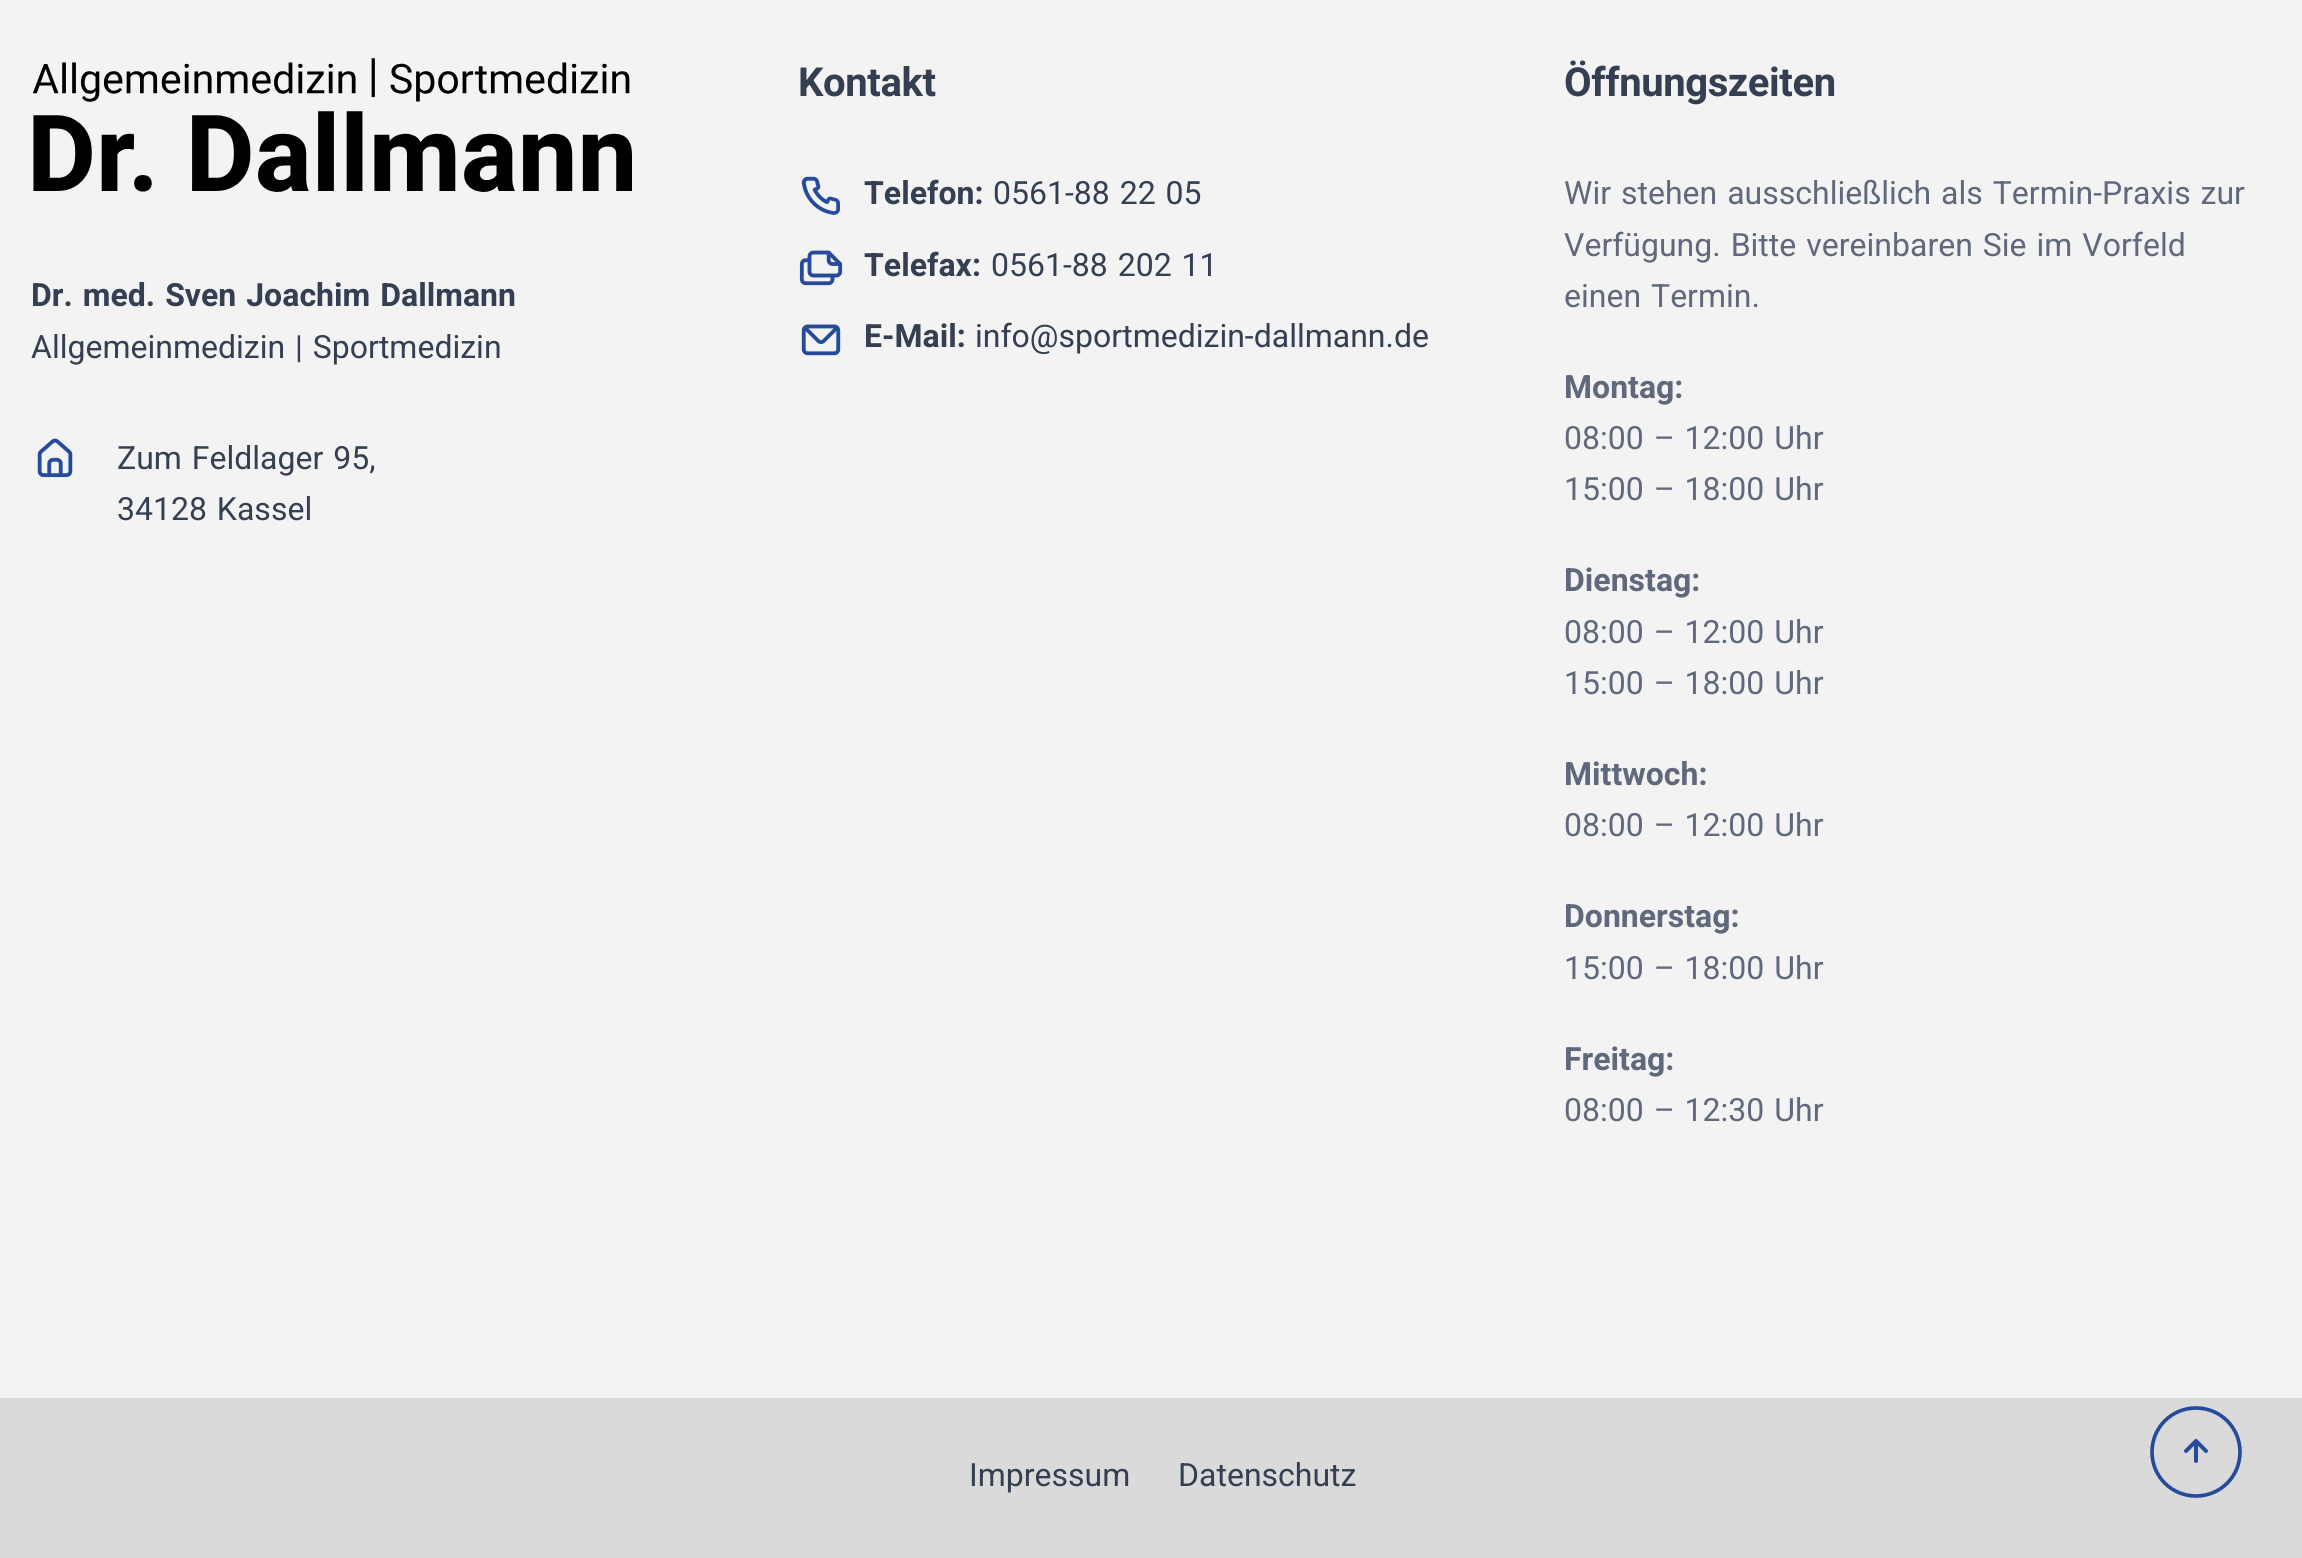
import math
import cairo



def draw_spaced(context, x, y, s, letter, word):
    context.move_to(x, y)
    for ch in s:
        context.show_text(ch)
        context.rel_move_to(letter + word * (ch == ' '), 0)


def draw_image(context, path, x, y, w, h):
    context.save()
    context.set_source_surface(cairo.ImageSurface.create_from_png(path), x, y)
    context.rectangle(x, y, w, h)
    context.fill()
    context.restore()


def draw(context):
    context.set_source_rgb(243 / 255, 243 / 255, 243 / 255)
    context.paint()
    draw_image(context, "images/1.png", 801, 176, 39, 39)
    draw_image(context, "images/2.png", 799, 250, 44, 36)
    draw_image(context, "images/3.png", 801, 324, 40, 32)
    draw_image(context, "images/4.png", 32, 58, 600, 134)
    draw_image(context, "images/5.png", 37, 438, 36, 40)
    context.set_source_rgb(218 / 255, 218 / 255, 218 / 255)
    context.rectangle(0, 1398, 2302, 160)
    context.fill()
    context.arc(2196, 1452, 44, 0, 2 * math.pi)
    context.set_source_rgb(196 / 255, 196 / 255, 197 / 255)
    context.set_line_width(4)
    context.stroke()
    context.new_path()
    context.move_to(2196, 1408)
    context.curve_to(2220.5, 1408, 2240, 1427.5, 2240, 1452)
    context.curve_to(2240, 1476.5, 2220.5, 1496, 2196, 1496)
    context.curve_to(2171.5, 1496, 2152, 1476.5, 2152, 1452)
    context.curve_to(2152, 1427.5, 2171.5, 1408, 2196, 1408)
    context.set_source_rgb(39 / 255, 75 / 255, 155 / 255)
    context.set_line_width(3.6)
    context.stroke()
    draw_image(context, "images/6.png", 2184, 1439, 24, 24)
    context.select_font_face("Heebo", cairo.FontSlant.NORMAL, cairo.FontWeight.BOLD)
    context.set_font_size(40)
    context.set_source_rgb(52 / 255, 63 / 255, 82 / 255)
    draw_spaced(context, 798, 96, "Kontakt", -0.4, 0)
    context.set_font_size(32)
    context.move_to(864, 204)
    context.show_text("Telefon:")
    context.select_font_face("Heebo")
    draw_spaced(context, 993, 204, "0561-88 22 05", 0, 2)
    context.select_font_face("Heebo", cairo.FontSlant.NORMAL, cairo.FontWeight.BOLD)
    context.move_to(864, 276)
    context.show_text("Telefax:")
    context.select_font_face("Heebo")
    draw_spaced(context, 991, 276, "0561-88 202 11", 0, 2)
    context.select_font_face("Heebo", cairo.FontSlant.NORMAL, cairo.FontWeight.BOLD)
    context.move_to(864, 347)
    context.show_text("E-Mail:")
    context.select_font_face("Heebo")
    context.move_to(975, 347)
    context.show_text("info@sportmedizin-dallmann.de")
    context.select_font_face("Heebo", cairo.FontSlant.NORMAL, cairo.FontWeight.BOLD)
    context.set_font_size(40)
    draw_spaced(context, 1564, 96, "Öffnungszeiten", -0.4, 0)
    context.select_font_face("Heebo")
    context.set_font_size(32)
    context.set_source_rgb(96 / 255, 105 / 255, 123 / 255)
    draw_spaced(context, 1564, 204, "Wir stehen ausschließlich als Termin-Praxis zur", 0, 2)
    draw_spaced(context, 1564, 256, "Verfügung. Bitte vereinbaren Sie im Vorfeld", 0, 2)
    draw_spaced(context, 1564, 307, "einen Termin.", 0, 2)
    context.select_font_face("Heebo", cairo.FontSlant.NORMAL, cairo.FontWeight.BOLD)
    context.move_to(1564, 398)
    context.show_text("Montag:")
    context.select_font_face("Heebo")
    draw_spaced(context, 1564, 449, "08:00 – 12:00 Uhr", 0, 2)
    draw_spaced(context, 1564, 500, "15:00 – 18:00 Uhr", 0, 2)
    context.select_font_face("Heebo", cairo.FontSlant.NORMAL, cairo.FontWeight.BOLD)
    context.move_to(1564, 591)
    context.show_text("Dienstag:")
    context.select_font_face("Heebo")
    draw_spaced(context, 1564, 643, "08:00 – 12:00 Uhr", 0, 2)
    draw_spaced(context, 1564, 694, "15:00 – 18:00 Uhr", 0, 2)
    context.select_font_face("Heebo", cairo.FontSlant.NORMAL, cairo.FontWeight.BOLD)
    context.move_to(1564, 785)
    context.show_text("Mittwoch:")
    context.select_font_face("Heebo")
    draw_spaced(context, 1564, 836, "08:00 – 12:00 Uhr", 0, 2)
    context.select_font_face("Heebo", cairo.FontSlant.NORMAL, cairo.FontWeight.BOLD)
    context.move_to(1564, 927)
    context.show_text("Donnerstag:")
    context.select_font_face("Heebo")
    draw_spaced(context, 1564, 979, "15:00 – 18:00 Uhr", 0, 2)
    context.select_font_face("Heebo", cairo.FontSlant.NORMAL, cairo.FontWeight.BOLD)
    context.move_to(1564, 1070)
    context.show_text("Freitag:")
    context.select_font_face("Heebo")
    draw_spaced(context, 1564, 1121, "08:00 – 12:30 Uhr", 0, 2)
    context.select_font_face("Heebo", cairo.FontSlant.NORMAL, cairo.FontWeight.BOLD)
    context.set_source_rgb(52 / 255, 63 / 255, 82 / 255)
    draw_spaced(context, 31, 306, "Dr. med. Sven Joachim Dallmann", 0, 2)
    context.select_font_face("Heebo")
    draw_spaced(context, 31, 358, "Allgemeinmedizin | Sportmedizin", 0, 2)
    draw_spaced(context, 117, 469, "Zum Feldlager 95,", 0, 2)
    draw_spaced(context, 117, 520, "34128 Kassel", 0, 2)
    context.move_to(969, 1486)
    context.show_text("Impressum")
    context.move_to(1178, 1486)
    context.show_text("Datenschutz")


surface = cairo.ImageSurface(cairo.Format.RGB24, 2302, 1558)
context = cairo.Context(surface)
options = cairo.FontOptions()
options.set_hint_metrics(cairo.HintMetrics.OFF)
options.set_hint_style(cairo.HintStyle.NONE)
context.set_font_options(options)
context.set_miter_limit(4)
draw(context)
surface.write_to_png("out.png")
